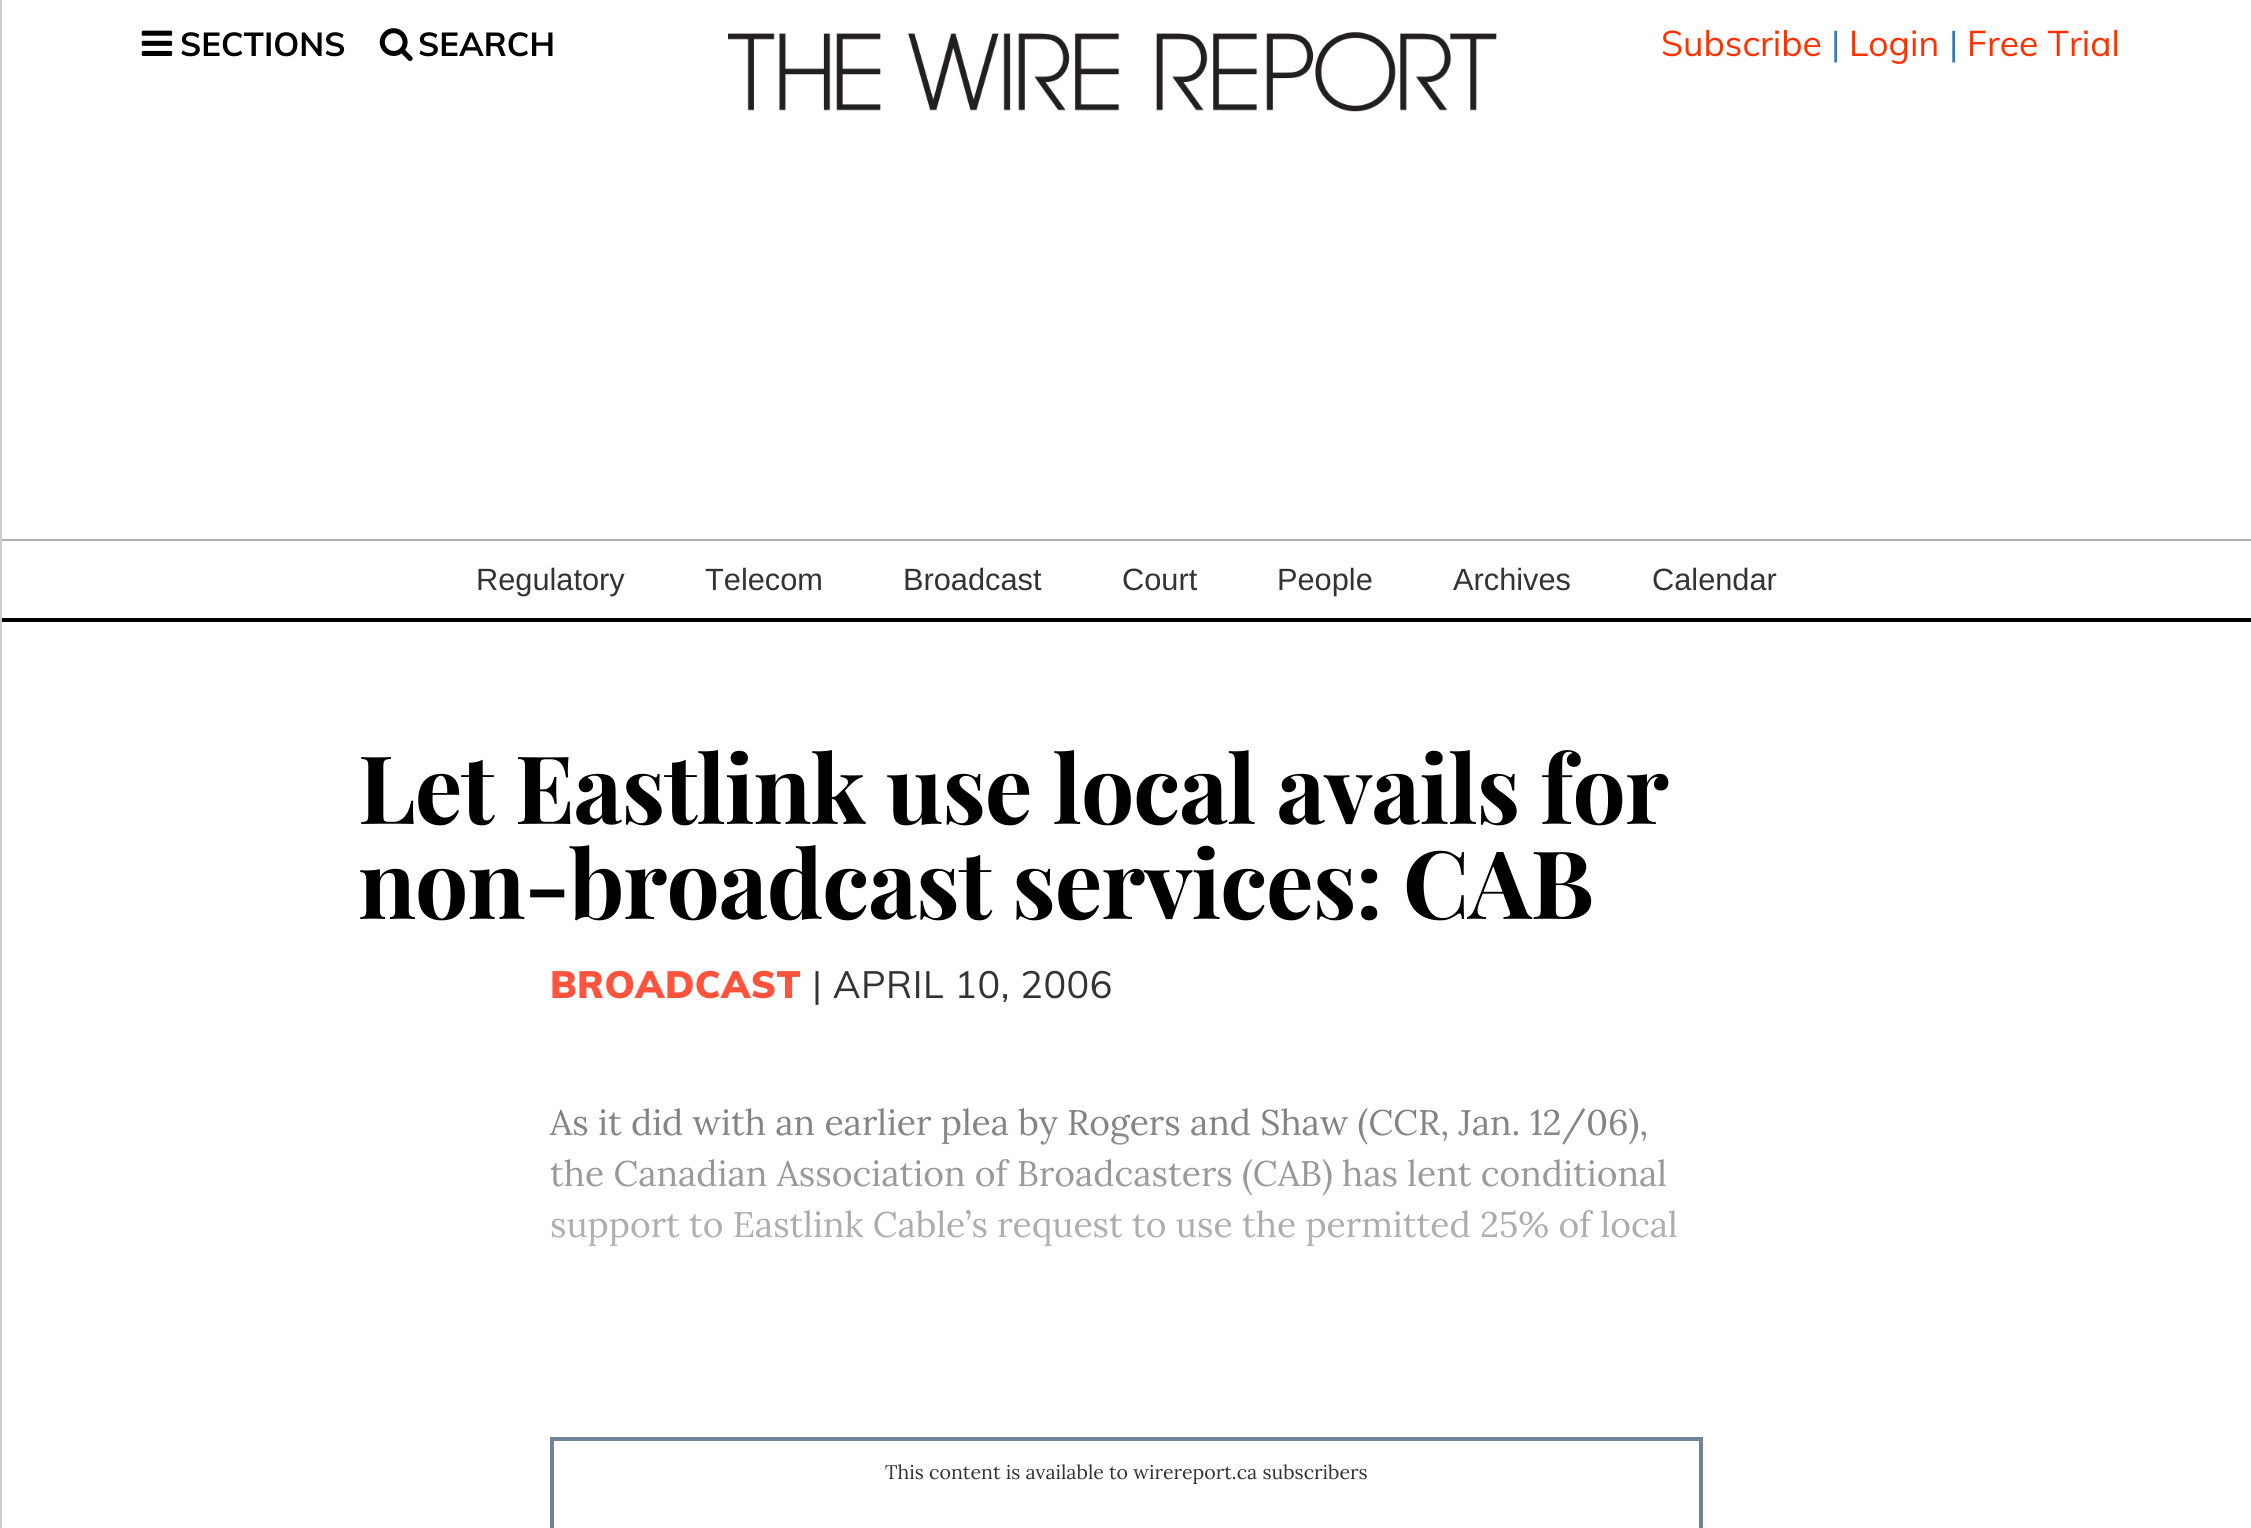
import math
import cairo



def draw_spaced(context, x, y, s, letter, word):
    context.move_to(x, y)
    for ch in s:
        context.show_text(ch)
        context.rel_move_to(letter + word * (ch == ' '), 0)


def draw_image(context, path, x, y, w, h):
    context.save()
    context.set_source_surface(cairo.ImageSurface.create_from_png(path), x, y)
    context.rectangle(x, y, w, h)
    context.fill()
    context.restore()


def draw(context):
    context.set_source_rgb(1, 1, 1)
    context.paint()
    context.set_source_rgb(177 / 255, 177 / 255, 177 / 255)
    context.rectangle(0, 539, 2251, 2)
    context.fill()
    context.set_source_rgb(0, 0, 0)
    context.rectangle(0, 618, 2251, 4)
    context.fill()
    context.set_source_rgb(204 / 255, 204 / 255, 204 / 255)
    context.rectangle(0, 0, 2, 1528)
    context.fill()
    draw_image(context, "images/1.png", 141, 30, 32, 26)
    draw_image(context, "images/2.png", 379, 28, 34, 33)
    draw_image(context, "images/3.png", 728, 32, 769, 80)
    context.rectangle(552, 1439, 1149, 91)
    context.set_source_rgb(114 / 255, 130 / 255, 155 / 255)
    context.set_line_width(4)
    context.stroke()
    context.select_font_face("Muli", cairo.FontSlant.NORMAL, cairo.FontWeight.BOLD)
    context.set_font_size(33)
    context.set_source_rgb(0, 0, 0)
    context.move_to(180, 56)
    context.show_text("SECTIONS")
    context.move_to(418, 56)
    context.show_text("SEARCH")
    context.select_font_face("Muli")
    context.set_font_size(35.45)
    context.set_source_rgb(1, 49 / 255, 0)
    context.move_to(1661, 56)
    context.show_text("Subscribe")
    context.set_source_rgb(51 / 255, 122 / 255, 183 / 255)
    context.move_to(1831, 56)
    context.show_text("|")
    context.set_source_rgb(1, 49 / 255, 0)
    context.move_to(1849, 56)
    context.show_text("Login")
    context.set_source_rgb(51 / 255, 122 / 255, 183 / 255)
    context.move_to(1949, 56)
    context.show_text("|")
    context.set_source_rgb(1, 49 / 255, 0)
    context.move_to(1967, 56)
    context.show_text("Free Trial")
    context.select_font_face("Liberation Sans")
    context.set_font_size(30.75)
    context.set_source_rgb(51 / 255, 51 / 255, 51 / 255)
    context.move_to(476, 590)
    context.show_text("Regulatory")
    context.move_to(705, 590)
    context.show_text("Telecom")
    context.move_to(903, 590)
    context.show_text("Broadcast")
    context.move_to(1122, 590)
    context.show_text("Court")
    context.move_to(1277, 590)
    context.show_text("People")
    context.move_to(1453, 590)
    context.show_text("Archives")
    context.move_to(1652, 590)
    context.show_text("Calendar")
    context.select_font_face("Playfair Display", cairo.FontSlant.NORMAL, cairo.FontWeight.BOLD)
    context.set_font_size(94.5)
    context.set_source_rgb(0, 0, 0)
    draw_spaced(context, 358, 824, "Let Eastlink use local avails for", -1, 0)
    draw_spaced(context, 358, 919, "non-broadcast services: CAB", -1, 0)
    context.select_font_face("Muli Black")
    context.set_font_size(37.75)
    context.set_source_rgb(1, 83 / 255, 62 / 255)
    draw_spaced(context, 550, 998, "BROADCAST", 0.5, 0)
    context.select_font_face("Muli")
    context.set_source_rgb(51 / 255, 51 / 255, 51 / 255)
    draw_spaced(context, 812, 998, "| APRIL 10, 2006", 0.5, 0)
    context.select_font_face("Lora")
    context.set_font_size(35.45)
    context.move_to(550, 1135)
    context.show_text("As it did with an earlier plea by Rogers and Shaw (CCR, Jan. 12/06),")
    context.move_to(550, 1186)
    context.show_text("the Canadian Association of Broadcasters (CAB) has lent conditional")
    context.move_to(550, 1237)
    context.show_text("support to Eastlink Cable’s request to use the permitted 25% of local")
    gradient = cairo.LinearGradient(1126, 924, 1126, 1428)
    gradient.add_color_stop_rgba(0, 1, 1, 1, 0)
    gradient.add_color_stop_rgba(1, 1, 1, 1, 1)
    context.set_source(gradient)
    context.rectangle(550, 1108, 1127, 139)
    context.fill()
    context.set_font_size(19.6)
    context.set_source_rgb(51 / 255, 51 / 255, 51 / 255)
    context.move_to(885, 1479)
    context.show_text("This content is available to wirereport.ca subscribers")


surface = cairo.ImageSurface(cairo.Format.RGB24, 2251, 1528)
context = cairo.Context(surface)
options = cairo.FontOptions()
options.set_hint_metrics(cairo.HintMetrics.OFF)
options.set_hint_style(cairo.HintStyle.NONE)
context.set_font_options(options)
context.set_miter_limit(4)
draw(context)
surface.write_to_png("out.png")
